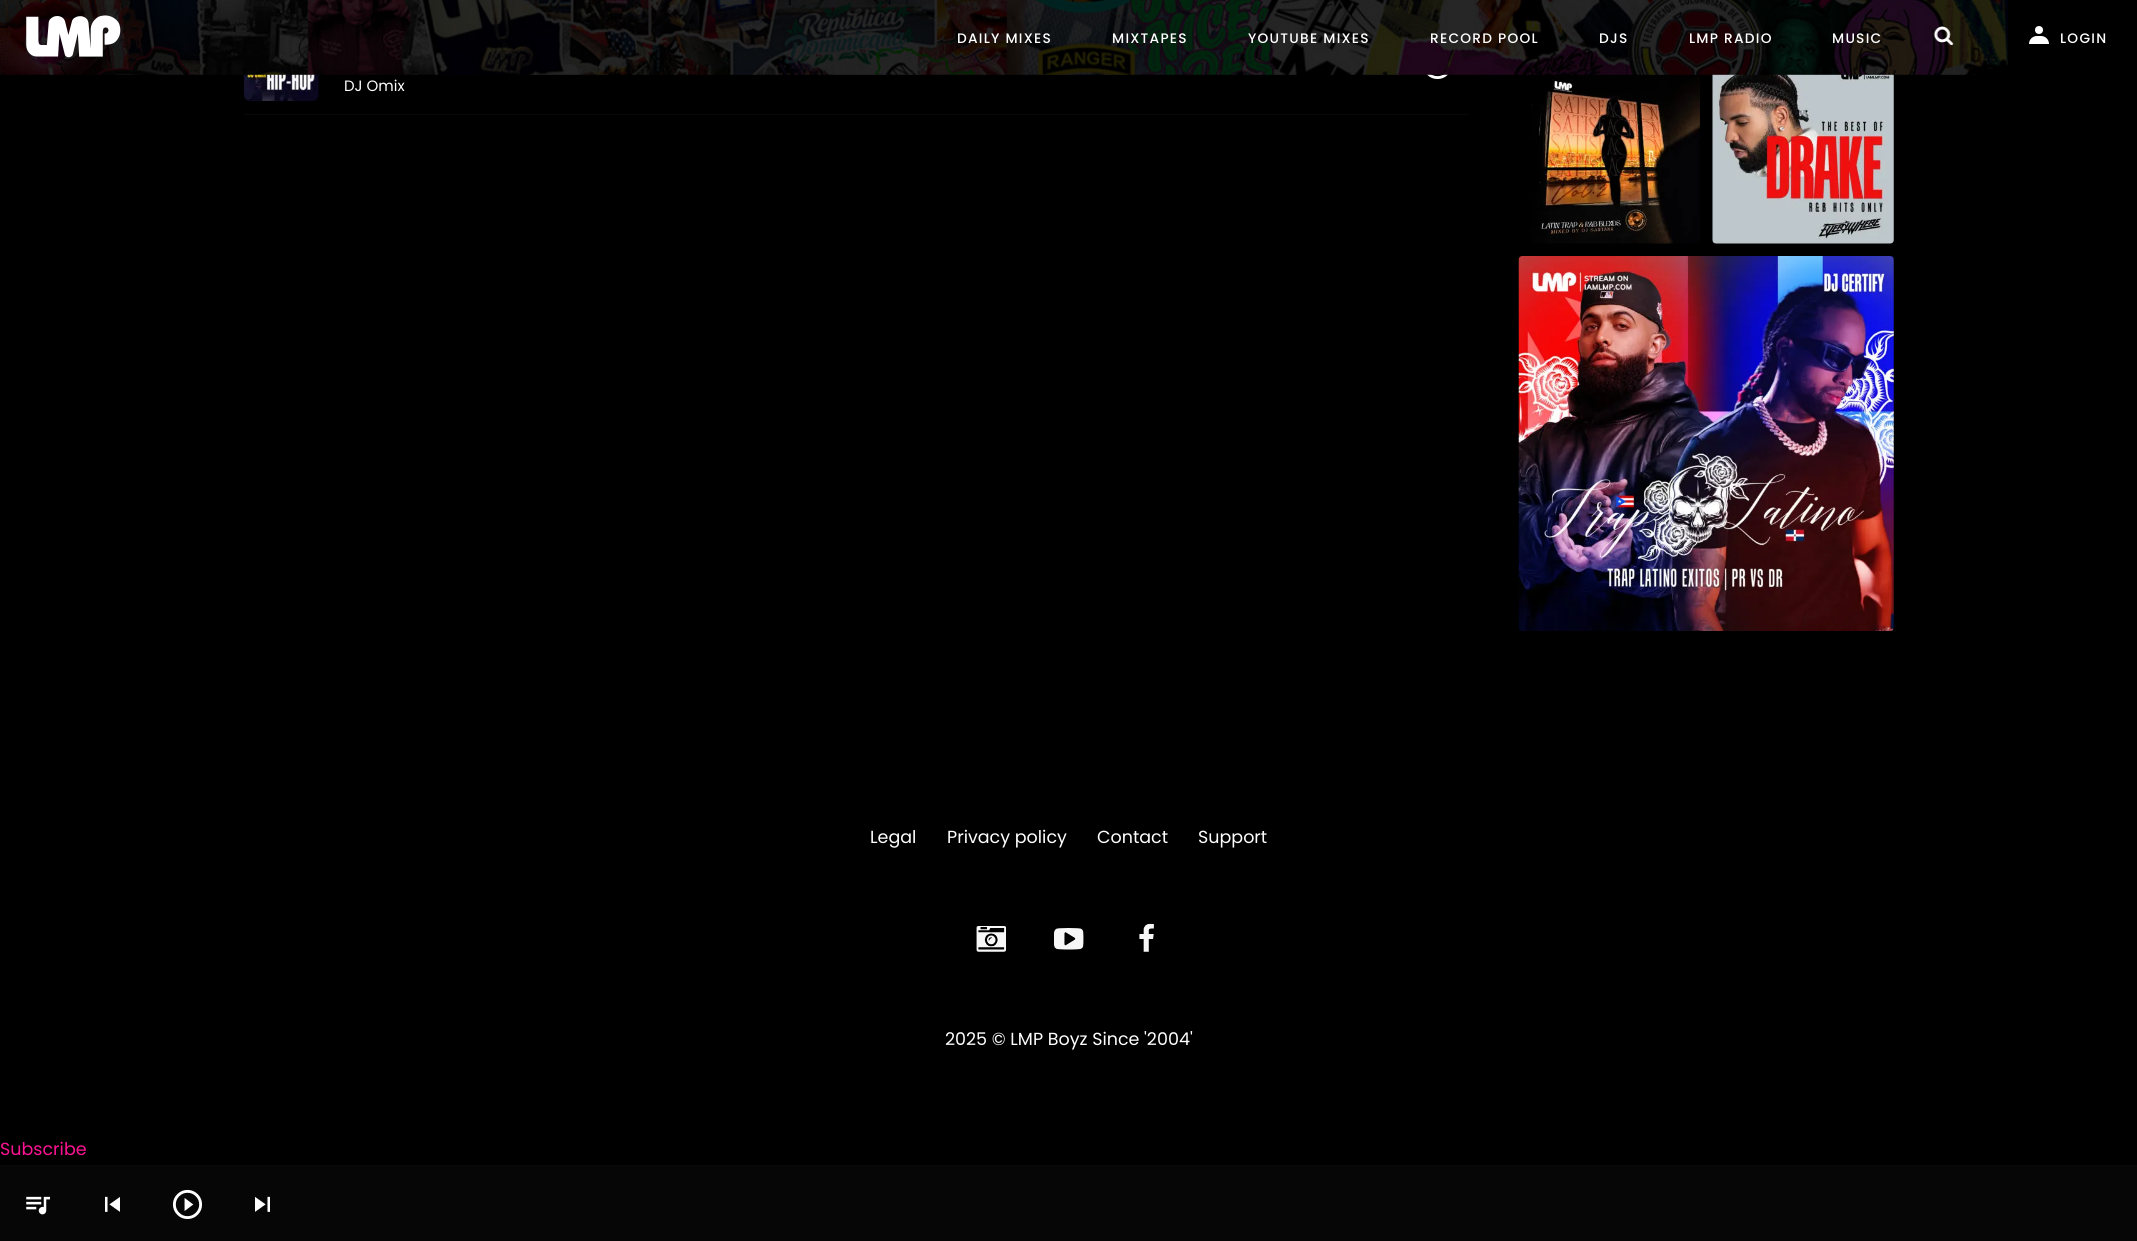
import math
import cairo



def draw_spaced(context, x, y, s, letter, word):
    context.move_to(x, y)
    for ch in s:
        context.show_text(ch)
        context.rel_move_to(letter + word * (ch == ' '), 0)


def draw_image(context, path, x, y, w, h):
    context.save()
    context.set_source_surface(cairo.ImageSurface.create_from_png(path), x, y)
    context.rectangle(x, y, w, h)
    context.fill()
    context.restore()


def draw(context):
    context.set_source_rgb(0, 0, 0)
    context.paint()
    draw_image(context, "images/4.png", 1426, 74, 23, 5)
    draw_image(context, "images/5.png", 243, 74, 76, 27)
    draw_image(context, "images/6.png", 1531, 74, 169, 170)
    draw_image(context, "images/7.png", 1712, 74, 182, 170)
    draw_image(context, "images/1.png", 0, 0, 2008, 75)
    draw_image(context, "images/2.png", 26, 15, 95, 43)
    draw_image(context, "images/3.png", 1933, 26, 21, 19)
    context.set_source_rgb(1, 1, 1)
    context.arc(2039, 30, 4, 0, 2 * math.pi)
    context.fill()
    context.new_path()
    context.move_to(2037, 36)
    context.line_to(2041, 36)
    context.curve_to(2045.5, 36, 2049, 39.5, 2049, 44)
    context.line_to(2029, 44)
    context.curve_to(2029, 39.5, 2032.5, 36, 2037, 36)
    context.close_path()
    context.fill()
    context.set_source_rgb(8 / 255, 8 / 255, 8 / 255)
    context.rectangle(244, 114, 1225, 1)
    context.fill()
    draw_image(context, "images/8.png", 1518, 256, 376, 375)
    draw_image(context, "images/9.png", 976, 926, 30, 26)
    draw_image(context, "images/10.png", 1054, 928, 30, 22)
    draw_image(context, "images/11.png", 1139, 923, 15, 29)
    context.set_source_rgb(6 / 255, 6 / 255, 6 / 255)
    context.rectangle(0, 1166, 2137, 75)
    context.fill()
    context.set_source_rgb(9 / 255, 9 / 255, 9 / 255)
    context.rectangle(0, 1165, 2137, 1)
    context.fill()
    draw_image(context, "images/12.png", 26, 1196, 24, 19)
    draw_image(context, "images/13.png", 105, 1196, 15, 16)
    draw_image(context, "images/14.png", 172, 1189, 31, 30)
    draw_image(context, "images/15.png", 255, 1196, 15, 16)
    context.select_font_face("Poppins Medium")
    context.set_font_size(13.75)
    context.set_source_rgb(1, 1, 1)
    draw_spaced(context, 957, 43, "DAILY MIXES", 1.25, 0)
    draw_spaced(context, 1112, 43, "MIXTAPES", 1.25, 0)
    draw_spaced(context, 1248, 43, "YOUTUBE MIXES", 1.25, 0)
    draw_spaced(context, 1430, 43, "RECORD POOL", 1.25, 0)
    draw_spaced(context, 1599, 43, "DJS", 1.25, 0)
    draw_spaced(context, 1689, 43, "LMP RADIO", 1.25, 0)
    draw_spaced(context, 1832, 43, "MUSIC", 1.25, 0)
    draw_spaced(context, 2060, 43, "LOGIN", 1.25, 0)
    context.select_font_face("Poppins")
    context.set_font_size(15)
    context.move_to(344, 91)
    context.show_text("DJ Omix")
    context.set_font_size(17.5)
    context.move_to(870, 843)
    context.show_text("Legal")
    context.move_to(947, 843)
    context.show_text("Privacy policy")
    context.move_to(1097, 843)
    context.show_text("Contact")
    context.move_to(1198, 843)
    context.show_text("Support")
    context.move_to(945, 1045)
    context.show_text("2025 © LMP Boyz Since '2004'")
    context.set_source_rgb(1, 19 / 255, 147 / 255)
    context.move_to(0, 1155)
    context.show_text("Subscribe")


surface = cairo.ImageSurface(cairo.Format.RGB24, 2137, 1241)
context = cairo.Context(surface)
options = cairo.FontOptions()
options.set_hint_metrics(cairo.HintMetrics.OFF)
options.set_hint_style(cairo.HintStyle.NONE)
context.set_font_options(options)
context.set_miter_limit(4)
draw(context)
surface.write_to_png("out.png")
